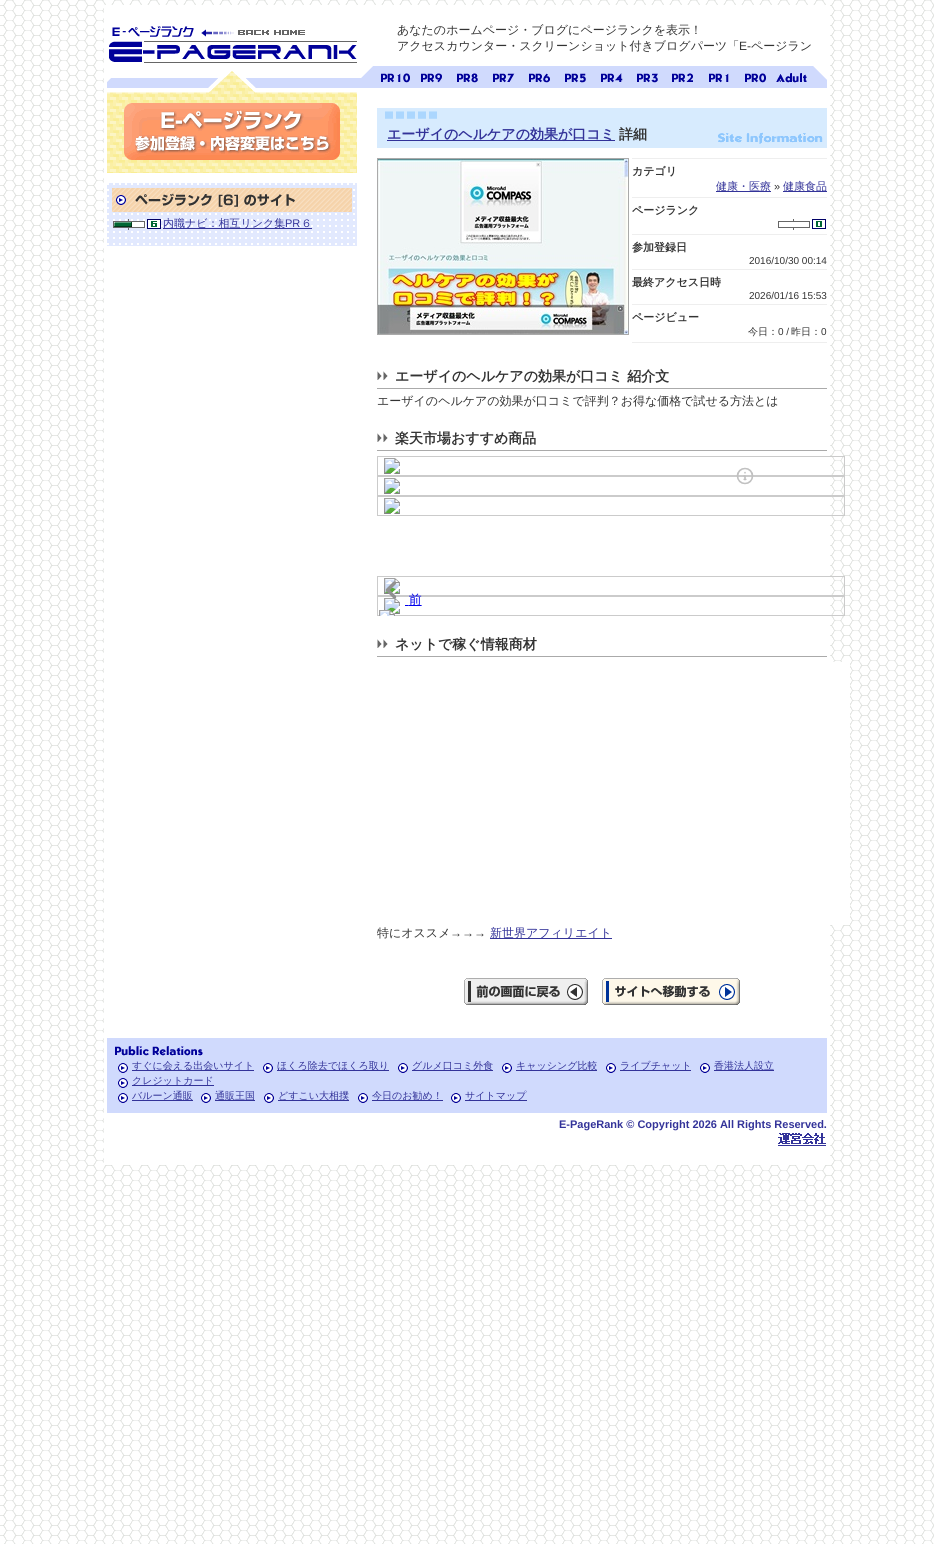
import math
import cairo



def draw_image(context, path, x, y, w, h):
    context.save()
    context.set_source_surface(cairo.ImageSurface.create_from_png(path), x, y)
    context.rectangle(x, y, w, h)
    context.fill()
    context.restore()


def draw(context):
    context.set_source_rgb(1, 1, 1)
    context.paint()
    draw_image(context, "images/1.png", 0, 0, 934, 1544)
    context.set_source_rgb(1, 1, 1)
    context.rectangle(104, 5, 726, 1160)
    context.fill()
    draw_image(context, "images/2.png", 109, 26, 248, 37)
    draw_image(context, "images/3.png", 107, 63, 720, 25)
    draw_image(context, "images/4.png", 381, 73, 29, 10)
    draw_image(context, "images/5.png", 421, 73, 21, 10)
    draw_image(context, "images/6.png", 457, 73, 21, 10)
    draw_image(context, "images/7.png", 493, 73, 22, 10)
    draw_image(context, "images/8.png", 529, 73, 21, 10)
    draw_image(context, "images/9.png", 565, 73, 21, 10)
    draw_image(context, "images/10.png", 601, 73, 22, 10)
    draw_image(context, "images/11.png", 637, 73, 21, 10)
    draw_image(context, "images/12.png", 672, 73, 21, 10)
    draw_image(context, "images/13.png", 709, 73, 20, 10)
    draw_image(context, "images/14.png", 745, 73, 21, 10)
    draw_image(context, "images/15.png", 776, 73, 31, 10)
    draw_image(context, "images/16.png", 107, 88, 250, 85)
    draw_image(context, "images/17.png", 107, 183, 250, 63)
    draw_image(context, "images/18.png", 112, 188, 240, 24)
    draw_image(context, "images/19.png", 113, 219, 48, 11)
    context.set_source_rgb(51 / 255, 51 / 255, 153 / 255)
    context.rectangle(163, 228, 149, 1)
    context.fill()
    draw_image(context, "images/20.png", 377, 108, 450, 40)
    context.rectangle(387, 140, 228, 1)
    context.fill()
    context.rectangle(377.5, 158.5, 251, 176)
    context.set_source_rgb(170 / 255, 170 / 255, 170 / 255)
    context.set_line_width(1)
    context.stroke()
    draw_image(context, "images/21.png", 378, 159, 250, 175)
    context.set_source_rgb(238 / 255, 238 / 255, 238 / 255)
    context.rectangle(632, 158, 195, 1)
    context.fill()
    context.rectangle(632, 197, 195, 1)
    context.fill()
    context.set_source_rgb(51 / 255, 51 / 255, 153 / 255)
    context.rectangle(716, 191, 55, 1)
    context.fill()
    context.rectangle(783, 191, 44, 1)
    context.fill()
    context.set_source_rgb(238 / 255, 238 / 255, 238 / 255)
    context.rectangle(632, 234, 195, 1)
    context.fill()
    draw_image(context, "images/22.png", 778, 219, 48, 11)
    context.rectangle(632, 269, 195, 1)
    context.fill()
    context.rectangle(632, 304, 195, 1)
    context.fill()
    context.rectangle(632, 342, 195, 1)
    context.fill()
    draw_image(context, "images/23.png", 377, 371, 11, 9)
    context.set_source_rgb(170 / 255, 170 / 255, 170 / 255)
    context.rectangle(377, 388, 450, 1)
    context.fill()
    draw_image(context, "images/23.png", 377, 433, 11, 9)
    context.rectangle(377, 450, 450, 1)
    context.fill()
    draw_image(context, "images/24.png", 377, 456, 468, 160)
    draw_image(context, "images/23.png", 377, 639, 11, 9)
    context.rectangle(377, 656, 450, 1)
    context.fill()
    context.set_source_rgb(1, 1, 1)
    context.rectangle(830, 662, 20, 263)
    context.fill()
    context.set_source_rgb(51 / 255, 51 / 255, 153 / 255)
    context.rectangle(490, 938, 122, 1)
    context.fill()
    draw_image(context, "images/25.png", 464, 978, 124, 27)
    draw_image(context, "images/26.png", 602, 978, 138, 27)
    context.set_source_rgb(208 / 255, 218 / 255, 253 / 255)
    context.rectangle(107, 1038, 720, 75)
    context.fill()
    draw_image(context, "images/27.png", 115, 1046, 88, 10)
    draw_image(context, "images/28.png", 118, 1063, 10, 10)
    context.set_source_rgb(51 / 255, 51 / 255, 153 / 255)
    context.rectangle(132, 1070, 122, 1)
    context.fill()
    draw_image(context, "images/28.png", 263, 1063, 10, 10)
    context.rectangle(277, 1070, 112, 1)
    context.fill()
    draw_image(context, "images/28.png", 398, 1063, 10, 10)
    context.rectangle(412, 1070, 81, 1)
    context.fill()
    draw_image(context, "images/28.png", 502, 1063, 10, 10)
    context.rectangle(516, 1070, 81, 1)
    context.fill()
    draw_image(context, "images/28.png", 606, 1063, 10, 10)
    context.rectangle(620, 1070, 71, 1)
    context.fill()
    draw_image(context, "images/28.png", 700, 1063, 10, 10)
    context.rectangle(714, 1070, 60, 1)
    context.fill()
    draw_image(context, "images/28.png", 118, 1078, 10, 10)
    context.rectangle(132, 1085, 82, 1)
    context.fill()
    draw_image(context, "images/28.png", 118, 1093, 10, 10)
    context.rectangle(132, 1100, 61, 1)
    context.fill()
    draw_image(context, "images/28.png", 201, 1093, 10, 10)
    context.rectangle(215, 1100, 40, 1)
    context.fill()
    draw_image(context, "images/28.png", 264, 1093, 10, 10)
    context.rectangle(278, 1100, 71, 1)
    context.fill()
    draw_image(context, "images/28.png", 358, 1093, 10, 10)
    context.rectangle(372, 1100, 71, 1)
    context.fill()
    draw_image(context, "images/28.png", 451, 1093, 10, 10)
    context.rectangle(465, 1100, 62, 1)
    context.fill()
    draw_image(context, "images/29.png", 778, 1133, 48, 13)
    context.select_font_face("WenQuanYi Zen Hei Medium")
    context.set_font_size(12)
    context.set_source_rgb(51 / 255, 51 / 255, 51 / 255)
    context.move_to(397, 34)
    context.show_text("あなたのホームページ・ブログにページランクを表示！")
    context.move_to(397, 50)
    context.show_text("アクセスカウンター・スクリーンショット付きブログパーツ「")
    context.select_font_face("Liberation Sans")
    context.move_to(739, 50)
    context.show_text("E-")
    context.select_font_face("WenQuanYi Zen Hei Medium")
    context.move_to(751, 50)
    context.show_text("ページラン")
    context.set_font_size(11)
    context.set_source_rgb(51 / 255, 51 / 255, 153 / 255)
    context.move_to(163, 227)
    context.show_text("内職ナビ：相互リンク集")
    context.select_font_face("Liberation Sans")
    context.move_to(285, 227)
    context.show_text("PR")
    context.select_font_face("WenQuanYi Zen Hei Medium")
    context.move_to(301, 227)
    context.show_text("６")
    context.select_font_face("WenQuanYi Zen Hei", cairo.FontSlant.NORMAL, cairo.FontWeight.BOLD)
    context.set_font_size(14)
    context.move_to(387, 139)
    context.show_text("エーザイのヘルケアの効果が口コミ")
    context.set_source_rgb(51 / 255, 51 / 255, 51 / 255)
    context.move_to(619, 139)
    context.show_text("詳細")
    context.set_font_size(11)
    context.move_to(632, 175)
    context.show_text("カテゴリ")
    context.select_font_face("WenQuanYi Zen Hei Medium")
    context.set_source_rgb(51 / 255, 51 / 255, 153 / 255)
    context.move_to(716, 190)
    context.show_text("健康・医療")
    context.select_font_face("Liberation Sans")
    context.set_source_rgb(51 / 255, 51 / 255, 51 / 255)
    context.move_to(774, 190)
    context.show_text("»")
    context.select_font_face("WenQuanYi Zen Hei Medium")
    context.set_source_rgb(51 / 255, 51 / 255, 153 / 255)
    context.move_to(783, 190)
    context.show_text("健康食品")
    context.select_font_face("WenQuanYi Zen Hei", cairo.FontSlant.NORMAL, cairo.FontWeight.BOLD)
    context.set_source_rgb(51 / 255, 51 / 255, 51 / 255)
    context.move_to(632, 214)
    context.show_text("ページランク")
    context.move_to(632, 251)
    context.show_text("参加登録日")
    context.select_font_face("Liberation Sans")
    context.set_font_size(10)
    context.move_to(749, 264)
    context.show_text("2016/10/30 00:14")
    context.select_font_face("WenQuanYi Zen Hei", cairo.FontSlant.NORMAL, cairo.FontWeight.BOLD)
    context.set_font_size(11)
    context.move_to(632, 286)
    context.show_text("最終アクセス日時")
    context.select_font_face("Liberation Sans")
    context.set_font_size(10)
    context.move_to(749, 299)
    context.show_text("2026/01/16 15:53")
    context.select_font_face("WenQuanYi Zen Hei", cairo.FontSlant.NORMAL, cairo.FontWeight.BOLD)
    context.set_font_size(11)
    context.move_to(632, 321)
    context.show_text("ページビュー")
    context.select_font_face("WenQuanYi Zen Hei Medium")
    context.set_font_size(10)
    context.move_to(748, 335)
    context.show_text("今日：")
    context.select_font_face("Liberation Sans")
    context.move_to(778, 335)
    context.show_text("0 /")
    context.select_font_face("WenQuanYi Zen Hei Medium")
    context.move_to(791, 335)
    context.show_text("昨日：")
    context.select_font_face("Liberation Sans")
    context.move_to(821, 335)
    context.show_text("0")
    context.select_font_face("WenQuanYi Zen Hei", cairo.FontSlant.NORMAL, cairo.FontWeight.BOLD)
    context.set_font_size(14)
    context.move_to(395, 381)
    context.show_text("エーザイのヘルケアの効果が口コミ 紹介文")
    context.select_font_face("WenQuanYi Zen Hei Medium")
    context.set_font_size(12)
    context.move_to(377, 405)
    context.show_text("エーザイのヘルケアの効果が口コミで評判？お得な価格で試せる方法とは")
    context.select_font_face("WenQuanYi Zen Hei", cairo.FontSlant.NORMAL, cairo.FontWeight.BOLD)
    context.set_font_size(14)
    context.move_to(395, 443)
    context.show_text("楽天市場おすすめ商品")
    context.move_to(395, 649)
    context.show_text("ネットで稼ぐ情報商材")
    context.select_font_face("WenQuanYi Zen Hei Medium")
    context.set_font_size(12)
    context.move_to(377, 937)
    context.show_text("特にオススメ")
    context.select_font_face("Liberation Sans")
    context.move_to(450, 937)
    context.show_text("→→→")
    context.select_font_face("WenQuanYi Zen Hei Medium")
    context.set_source_rgb(51 / 255, 51 / 255, 153 / 255)
    context.move_to(490, 937)
    context.show_text("新世界アフィリエイト")
    context.set_font_size(10)
    context.move_to(132, 1069)
    context.show_text("すぐに会える出会いサイト")
    context.move_to(277, 1069)
    context.show_text("ほくろ除去でほくろ取り")
    context.move_to(412, 1069)
    context.show_text("グルメ口コミ外食")
    context.move_to(516, 1069)
    context.show_text("キャッシング比較")
    context.move_to(620, 1069)
    context.show_text("ライブチャット")
    context.move_to(714, 1069)
    context.show_text("香港法人設立")
    context.move_to(132, 1084)
    context.show_text("クレジットカード")
    context.move_to(132, 1099)
    context.show_text("バルーン通販")
    context.move_to(215, 1099)
    context.show_text("通販王国")
    context.move_to(278, 1099)
    context.show_text("どすこい大相撲")
    context.move_to(372, 1099)
    context.show_text("今日のお勧め！")
    context.move_to(465, 1099)
    context.show_text("サイトマップ")
    context.select_font_face("Liberation Sans", cairo.FontSlant.NORMAL, cairo.FontWeight.BOLD)
    context.set_font_size(11)
    context.move_to(559, 1128)
    context.show_text("E-PageRank © Copyright 2026 All Rights Reserved.")


surface = cairo.ImageSurface(cairo.Format.RGB24, 934, 1544)
context = cairo.Context(surface)
options = cairo.FontOptions()
options.set_hint_metrics(cairo.HintMetrics.OFF)
options.set_hint_style(cairo.HintStyle.NONE)
context.set_font_options(options)
context.set_miter_limit(4)
draw(context)
surface.write_to_png("out.png")
